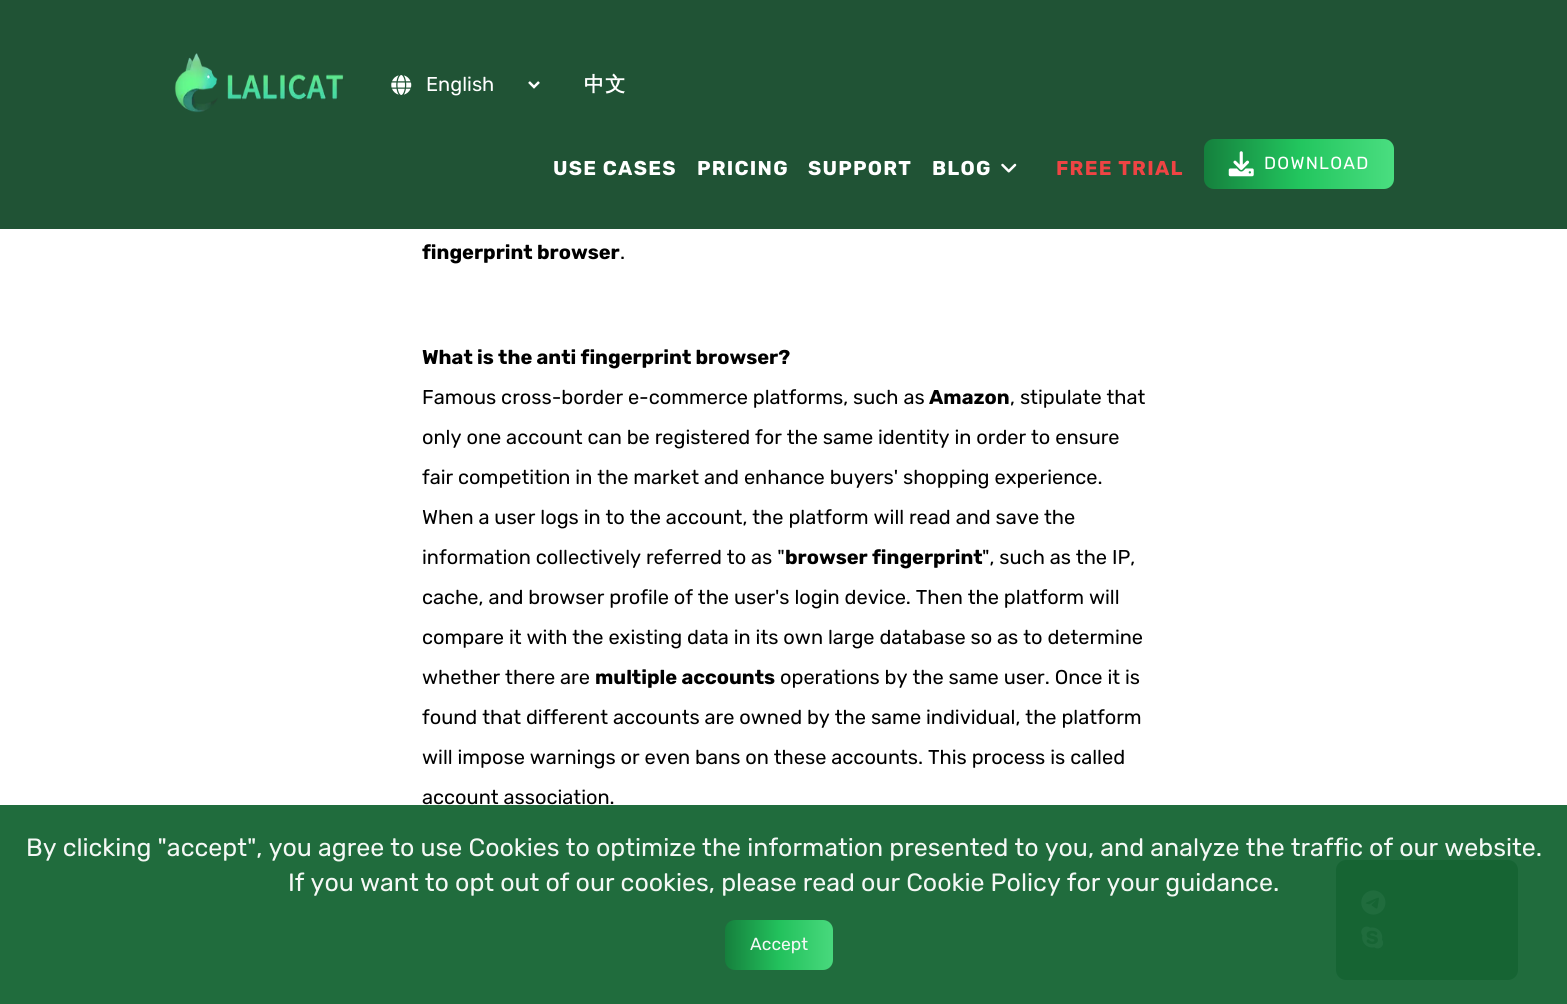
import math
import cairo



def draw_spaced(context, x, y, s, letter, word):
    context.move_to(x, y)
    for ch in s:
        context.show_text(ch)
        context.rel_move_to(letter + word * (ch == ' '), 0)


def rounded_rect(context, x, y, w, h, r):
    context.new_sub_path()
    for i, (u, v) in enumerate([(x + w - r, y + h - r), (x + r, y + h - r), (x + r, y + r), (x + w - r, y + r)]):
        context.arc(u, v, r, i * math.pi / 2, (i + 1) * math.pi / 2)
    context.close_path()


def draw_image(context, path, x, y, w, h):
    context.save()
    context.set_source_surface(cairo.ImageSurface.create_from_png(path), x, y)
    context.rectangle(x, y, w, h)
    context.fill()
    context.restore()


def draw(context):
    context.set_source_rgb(1, 1, 1)
    context.paint()
    context.set_source_rgb(32 / 255, 83 / 255, 53 / 255)
    context.rectangle(0, 0, 1567, 229)
    context.fill()
    draw_image(context, "images/1.png", 174, 53, 170, 60)
    draw_image(context, "images/2.png", 391, 75, 21, 20)
    context.new_path()
    context.move_to(529, 82)
    context.line_to(534, 87)
    context.line_to(539, 82)
    context.set_source_rgb(1, 1, 1)
    context.set_line_width(2.5)
    context.stroke()
    draw_image(context, "images/3.png", 1001, 163, 16, 10)
    gradient = cairo.LinearGradient(1204, 164, 1394, 164)
    gradient.add_color_stop_rgba(0, 21 / 255, 128 / 255, 61 / 255, 1)
    gradient.add_color_stop_rgba(0.5, 34 / 255, 197 / 255, 94 / 255, 1)
    gradient.add_color_stop_rgba(1, 74 / 255, 222 / 255, 128 / 255, 1)
    context.set_source(gradient)
    rounded_rect(context, 1204, 139, 190, 50, 10)
    context.fill()
    draw_image(context, "images/4.png", 1228, 151, 26, 26)
    context.set_source_rgb(32 / 255, 83 / 255, 53 / 255)
    rounded_rect(context, 1336, 860, 182, 120, 10)
    context.fill()
    draw_image(context, "images/5.png", 1361, 890, 25, 25)
    draw_image(context, "images/6.png", 1361, 926, 23, 23)
    context.set_source_rgba(22 / 255, 101 / 255, 52 / 255, 0.95)
    context.rectangle(0, 805, 1567, 199)
    context.fill()
    gradient = cairo.LinearGradient(725, 945, 833, 945)
    gradient.add_color_stop_rgba(0, 21 / 255, 128 / 255, 61 / 255, 0.95)
    gradient.add_color_stop_rgba(0.5, 34 / 255, 197 / 255, 94 / 255, 0.95)
    gradient.add_color_stop_rgba(1, 74 / 255, 222 / 255, 128 / 255, 0.95)
    context.set_source(gradient)
    rounded_rect(context, 725, 920, 108, 50, 10)
    context.fill()
    context.select_font_face("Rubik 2 Light")
    context.set_font_size(20)
    context.set_source_rgb(1, 1, 1)
    context.move_to(426, 91)
    context.show_text("English")
    context.select_font_face("WenQuanYi Zen Hei", cairo.FontSlant.NORMAL, cairo.FontWeight.BOLD)
    draw_spaced(context, 584, 91, "中文", 1.25, 0)
    context.select_font_face("Rubik Light")
    draw_spaced(context, 553, 175, "USE CASES", 1.25, 0)
    draw_spaced(context, 697, 175, "PRICING", 1.25, 0)
    draw_spaced(context, 808, 175, "SUPPORT", 1.25, 0)
    draw_spaced(context, 932, 175, "BLOG", 1.25, 0)
    context.set_source_rgb(239 / 255, 68 / 255, 68 / 255)
    draw_spaced(context, 1056, 175, "FREE TRIAL", 1.25, 0)
    context.select_font_face("Rubik 2 Light")
    context.set_font_size(17.5)
    context.set_source_rgb(1, 1, 1)
    draw_spaced(context, 1264, 169, "DOWNLOAD", 1.25, 0)
    context.select_font_face("Rubik Light")
    context.set_font_size(20)
    context.set_source_rgb(0, 0, 0)
    context.move_to(422, 259)
    context.show_text("fingerprint browser")
    context.select_font_face("Rubik 2 Light")
    context.move_to(620, 259)
    context.show_text(".")
    context.select_font_face("Rubik Light")
    context.move_to(422, 364)
    context.show_text("What is the anti fingerprint browser?")
    context.select_font_face("Rubik 2 Light")
    context.move_to(422, 404)
    context.show_text("Famous cross-border e-commerce platforms, such as")
    context.select_font_face("Rubik Light")
    context.move_to(929, 404)
    context.show_text("Amazon")
    context.select_font_face("Rubik 2 Light")
    context.move_to(1010, 404)
    context.show_text(", stipulate that")
    context.move_to(422, 444)
    context.show_text("only one account can be registered for the same identity in order to ensure")
    context.move_to(422, 484)
    context.show_text("fair competition in the market and enhance buyers' shopping experience.")
    context.move_to(422, 524)
    context.show_text("When a user logs in to the account, the platform will read and save the")
    context.move_to(422, 564)
    context.show_text("information collectively referred to as \"")
    context.select_font_face("Rubik Light")
    context.move_to(785, 564)
    context.show_text("browser fingerprint")
    context.select_font_face("Rubik 2 Light")
    context.move_to(982, 564)
    context.show_text("\", such as the IP,")
    context.move_to(422, 604)
    context.show_text("cache, and browser profile of the user's login device. Then the platform will")
    context.move_to(422, 644)
    context.show_text("compare it with the existing data in its own large database so as to determine")
    context.move_to(422, 684)
    context.show_text("whether there are")
    context.select_font_face("Rubik Light")
    context.move_to(595, 684)
    context.show_text("multiple accounts")
    context.select_font_face("Rubik 2 Light")
    context.move_to(780, 684)
    context.show_text("operations by the same user. Once it is")
    context.move_to(422, 724)
    context.show_text("found that different accounts are owned by the same individual, the platform")
    context.move_to(422, 764)
    context.show_text("will impose warnings or even bans on these accounts. This process is called")
    context.move_to(422, 804)
    context.show_text("account association.")
    context.set_font_size(25)
    context.set_source_rgb(244 / 255, 248 / 255, 245 / 255)
    context.move_to(26, 856)
    context.show_text("By clicking \"accept\", you agree to use Cookies to optimize the information presented to you, and analyze the traffic of our website.")
    context.move_to(288, 891)
    context.show_text("If you want to opt out of our cookies, please read our Cookie Policy for your guidance.")
    context.set_font_size(17.5)
    context.move_to(750, 950)
    context.show_text("Accept")


surface = cairo.ImageSurface(cairo.Format.RGB24, 1567, 1004)
context = cairo.Context(surface)
options = cairo.FontOptions()
options.set_hint_metrics(cairo.HintMetrics.OFF)
options.set_hint_style(cairo.HintStyle.NONE)
context.set_font_options(options)
context.set_miter_limit(4)
draw(context)
surface.write_to_png("out.png")
